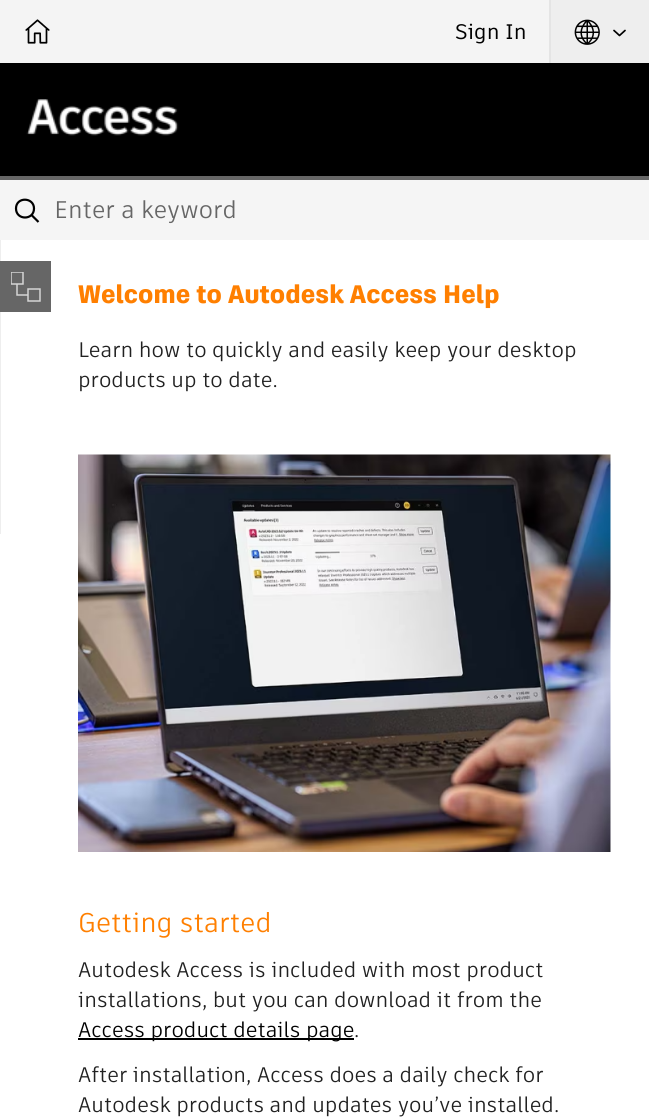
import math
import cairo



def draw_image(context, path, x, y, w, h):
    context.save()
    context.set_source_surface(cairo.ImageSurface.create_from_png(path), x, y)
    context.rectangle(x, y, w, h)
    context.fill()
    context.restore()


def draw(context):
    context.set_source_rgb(1, 1, 1)
    context.paint()
    context.set_source_rgb(244 / 255, 244 / 255, 244 / 255)
    context.rectangle(0, 0, 549, 63)
    context.fill()
    draw_image(context, "images/1.png", 25, 19, 25, 25)
    context.set_source_rgb(238 / 255, 238 / 255, 238 / 255)
    context.rectangle(551, 0, 98, 63)
    context.fill()
    context.set_source_rgb(228 / 255, 228 / 255, 228 / 255)
    context.rectangle(549, 0, 2, 63)
    context.fill()
    draw_image(context, "images/2.png", 574, 19, 26, 26)
    context.new_path()
    context.move_to(625, 30.5)
    context.line_to(619.5, 35.5)
    context.line_to(614, 30.5)
    context.set_source_rgb(0, 0, 0)
    context.set_line_width(1.7)
    context.set_line_cap(cairo.LineCap.ROUND)
    context.set_line_join(cairo.LineJoin.ROUND)
    context.stroke()
    context.rectangle(0, 63, 649, 113)
    context.fill()
    context.set_source_rgb(102 / 255, 102 / 255, 102 / 255)
    context.rectangle(0, 176, 649, 4)
    context.fill()
    draw_image(context, "images/3.png", 26, 99, 153, 37)
    context.set_source_rgb(245 / 255, 245 / 255, 245 / 255)
    context.rectangle(0, 180, 649, 60)
    context.fill()
    context.new_path()
    context.move_to(31.5, 215)
    context.line_to(38.5, 222)
    context.move_to(34, 208.5)
    context.curve_to(34, 220.5, 16, 220.5, 16, 208.5)
    context.curve_to(16, 196.5, 34, 197, 34, 208.5)
    context.close_path()
    context.set_source_rgb(0, 0, 0)
    context.set_line_width(2.2)
    context.set_line_cap(cairo.LineCap.BUTT)
    context.set_line_join(cairo.LineJoin.MITER)
    context.stroke()
    context.set_source_rgb(238 / 255, 238 / 255, 238 / 255)
    context.rectangle(0, 240, 1, 294)
    context.fill()
    context.set_source_rgb(102 / 255, 102 / 255, 102 / 255)
    context.rectangle(0, 261, 51, 51)
    context.fill()
    context.save()
    context.rectangle(11, 272, 30, 30)
    context.clip()
    context.new_path()
    context.move_to(17, 284)
    context.line_to(11, 284)
    context.line_to(11, 272)
    context.line_to(23, 272)
    context.line_to(23, 284)
    context.line_to(17, 284)
    context.line_to(17, 295)
    context.line_to(28, 295)
    context.line_to(28, 301)
    context.line_to(40, 301)
    context.line_to(40, 289)
    context.line_to(28, 289)
    context.line_to(28, 295)
    context.set_source_rgb(212 / 255, 212 / 255, 212 / 255)
    context.set_line_width(1.5)
    context.stroke()
    context.restore()
    draw_image(context, "images/4.png", 78, 454, 533, 398)
    context.set_source_rgb(0, 0, 0)
    context.rectangle(78, 1038, 276, 2)
    context.fill()
    context.select_font_face("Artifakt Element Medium")
    context.set_font_size(21)
    context.move_to(455, 39)
    context.show_text("Sign In")
    context.select_font_face("Artifakt Element")
    context.set_font_size(24)
    context.set_source_rgb(102 / 255, 102 / 255, 102 / 255)
    context.move_to(54, 218)
    context.show_text("Enter a keyword")
    context.select_font_face("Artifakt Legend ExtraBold")
    context.set_font_size(25.25)
    context.set_source_rgb(1, 127 / 255, 0)
    context.move_to(78, 303)
    context.show_text("Welcome to Autodesk Access Help")
    context.select_font_face("Artifakt Element")
    context.set_font_size(21)
    context.set_source_rgb(33 / 255, 33 / 255, 33 / 255)
    context.move_to(78, 357)
    context.show_text("Learn how to quickly and easily keep your desktop")
    context.move_to(78, 387)
    context.show_text("products up to date.")
    context.set_font_size(27)
    context.set_source_rgb(1, 127 / 255, 0)
    context.move_to(78, 932)
    context.show_text("Getting started")
    context.set_font_size(21)
    context.set_source_rgb(33 / 255, 33 / 255, 33 / 255)
    context.move_to(78, 977)
    context.show_text("Autodesk Access is included with most product")
    context.move_to(78, 1007)
    context.show_text("installations, but you can download it from the")
    context.set_source_rgb(0, 0, 0)
    context.move_to(78, 1037)
    context.show_text("Access product details page")
    context.set_source_rgb(33 / 255, 33 / 255, 33 / 255)
    context.move_to(354, 1037)
    context.show_text(".")
    context.move_to(78, 1082)
    context.show_text("After installation, Access does a daily check for")
    context.move_to(78, 1112)
    context.show_text("Autodesk products and updates you’ve installed.")


surface = cairo.ImageSurface(cairo.Format.RGB24, 649, 1119)
context = cairo.Context(surface)
options = cairo.FontOptions()
options.set_hint_metrics(cairo.HintMetrics.OFF)
options.set_hint_style(cairo.HintStyle.NONE)
context.set_font_options(options)
context.set_miter_limit(4)
draw(context)
surface.write_to_png("out.png")
